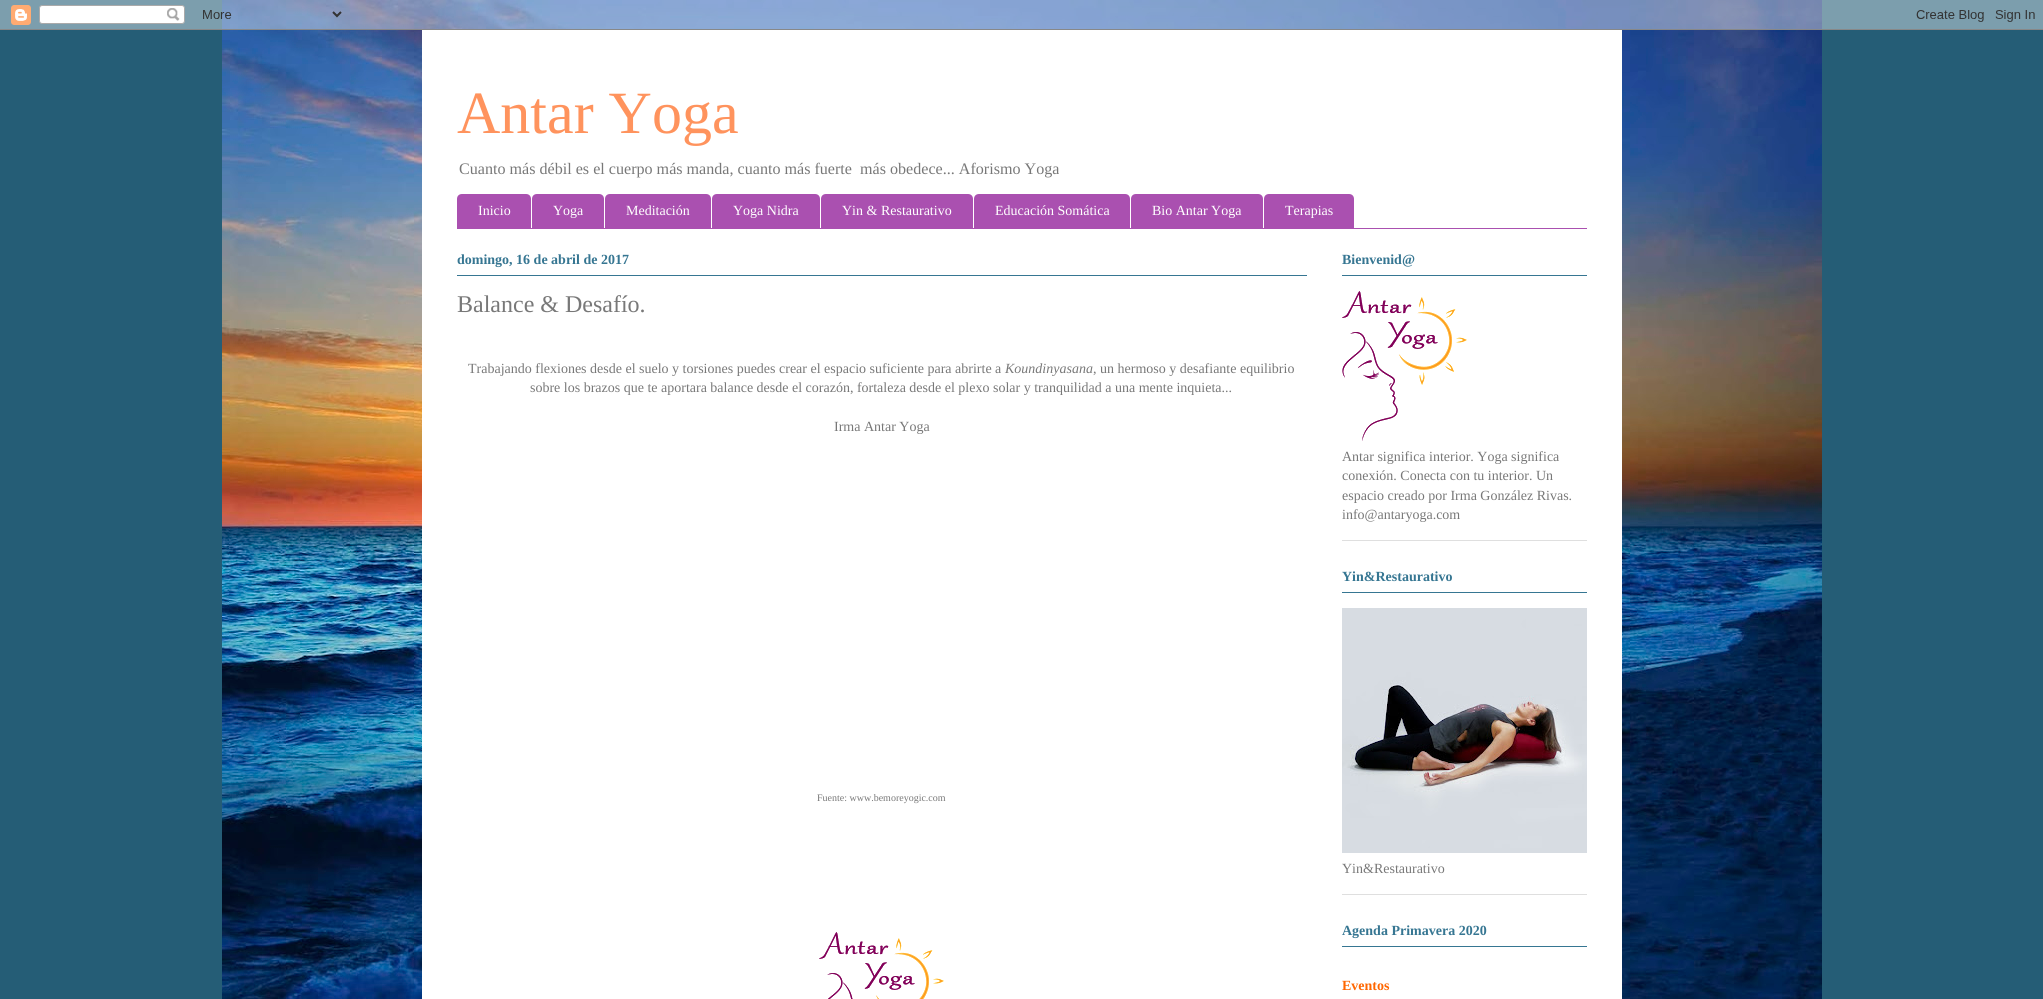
import math
import cairo



def draw_image(context, path, x, y, w, h):
    context.save()
    context.set_source_surface(cairo.ImageSurface.create_from_png(path), x, y)
    context.rectangle(x, y, w, h)
    context.fill()
    context.restore()


def draw(context):
    context.set_source_rgb(37 / 255, 93 / 255, 118 / 255)
    context.paint()
    draw_image(context, "images/1.png", 222, 0, 1600, 999)
    draw_image(context, "images/2.png", 0, 0, 2043, 30)
    context.set_source_rgb(1, 1, 1)
    context.rectangle(422, 30, 1200, 969)
    context.fill()
    context.set_source_rgb(170 / 255, 80 / 255, 176 / 255)
    context.rectangle(457, 228, 1130, 1)
    context.fill()
    context.new_path()
    context.move_to(462, 194)
    context.line_to(526, 194)
    context.curve_to(529, 194, 531, 196, 531, 199)
    context.line_to(531, 228)
    context.line_to(457, 228)
    context.line_to(457, 199)
    context.curve_to(457, 196, 459, 194, 462, 194)
    context.close_path()
    context.fill()
    context.new_path()
    context.move_to(537, 194)
    context.line_to(599, 194)
    context.curve_to(602, 194, 604, 196, 604, 199)
    context.line_to(604, 228)
    context.line_to(532, 228)
    context.line_to(532, 199)
    context.curve_to(532, 196, 534, 194, 537, 194)
    context.close_path()
    context.fill()
    context.new_path()
    context.move_to(610, 194)
    context.line_to(706, 194)
    context.curve_to(709, 194, 711, 196, 711, 199)
    context.line_to(711, 228)
    context.line_to(605, 228)
    context.line_to(605, 199)
    context.curve_to(605, 196, 607, 194, 610, 194)
    context.close_path()
    context.fill()
    context.new_path()
    context.move_to(717, 194)
    context.line_to(815, 194)
    context.curve_to(818, 194, 820, 196, 820, 199)
    context.line_to(820, 228)
    context.line_to(712, 228)
    context.line_to(712, 199)
    context.curve_to(712, 196, 714, 194, 717, 194)
    context.close_path()
    context.fill()
    context.new_path()
    context.move_to(826, 194)
    context.line_to(968, 194)
    context.curve_to(971, 194, 973, 196, 973, 199)
    context.line_to(973, 228)
    context.line_to(821, 228)
    context.line_to(821, 199)
    context.curve_to(821, 196, 823, 194, 826, 194)
    context.close_path()
    context.fill()
    context.new_path()
    context.move_to(979, 194)
    context.line_to(1125, 194)
    context.curve_to(1128, 194, 1130, 196, 1130, 199)
    context.line_to(1130, 228)
    context.line_to(974, 228)
    context.line_to(974, 199)
    context.curve_to(974, 196, 976, 194, 979, 194)
    context.close_path()
    context.fill()
    context.new_path()
    context.move_to(1136, 194)
    context.line_to(1258, 194)
    context.curve_to(1261, 194, 1263, 196, 1263, 199)
    context.line_to(1263, 228)
    context.line_to(1131, 228)
    context.line_to(1131, 199)
    context.curve_to(1131, 196, 1133, 194, 1136, 194)
    context.close_path()
    context.fill()
    context.new_path()
    context.move_to(1269, 194)
    context.line_to(1349, 194)
    context.curve_to(1352, 194, 1354, 196, 1354, 199)
    context.line_to(1354, 228)
    context.line_to(1264, 228)
    context.line_to(1264, 199)
    context.curve_to(1264, 196, 1266, 194, 1269, 194)
    context.close_path()
    context.fill()
    context.set_source_rgb(54 / 255, 118 / 255, 146 / 255)
    context.rectangle(457, 275, 850, 1)
    context.fill()
    draw_image(context, "images/3.png", 819, 932, 125, 67)
    context.set_source_rgb(223 / 255, 223 / 255, 223 / 255)
    context.rectangle(1342, 540, 245, 1)
    context.fill()
    context.set_source_rgb(54 / 255, 118 / 255, 146 / 255)
    context.rectangle(1342, 275, 245, 1)
    context.fill()
    draw_image(context, "images/4.png", 1342, 291, 125, 150)
    context.set_source_rgb(223 / 255, 223 / 255, 223 / 255)
    context.rectangle(1342, 894, 245, 1)
    context.fill()
    context.set_source_rgb(54 / 255, 118 / 255, 146 / 255)
    context.rectangle(1342, 592, 245, 1)
    context.fill()
    draw_image(context, "images/5.png", 1342, 608, 245, 245)
    context.rectangle(1342, 946, 245, 1)
    context.fill()
    context.select_font_face("Liberation Serif")
    context.set_font_size(60)
    context.set_source_rgb(1, 147 / 255, 93 / 255)
    context.move_to(457, 133)
    context.show_text("Antar Yoga")
    context.set_font_size(16.1)
    context.set_source_rgb(120 / 255, 120 / 255, 120 / 255)
    context.move_to(459, 174)
    context.show_text("Cuanto más débil es el cuerpo más manda, cuanto más fuerte  más obedece... Aforismo Yoga")
    context.set_font_size(14)
    context.set_source_rgb(1, 1, 1)
    context.move_to(478, 215)
    context.show_text("Inicio")
    context.move_to(553, 215)
    context.show_text("Yoga")
    context.move_to(626, 215)
    context.show_text("Meditación")
    context.move_to(733, 215)
    context.show_text("Yoga Nidra")
    context.move_to(842, 215)
    context.show_text("Yin & Restaurativo")
    context.move_to(995, 215)
    context.show_text("Educación Somática")
    context.move_to(1152, 215)
    context.show_text("Bio Antar Yoga")
    context.move_to(1285, 215)
    context.show_text("Terapias")
    context.select_font_face("Liberation Serif", cairo.FontSlant.NORMAL, cairo.FontWeight.BOLD)
    context.set_source_rgb(54 / 255, 118 / 255, 146 / 255)
    context.move_to(457, 264)
    context.show_text("domingo, 16 de abril de 2017")
    context.select_font_face("Liberation Serif")
    context.set_font_size(24)
    context.set_source_rgb(120 / 255, 120 / 255, 120 / 255)
    context.move_to(457, 312)
    context.show_text("Balance & Desafío.")
    context.set_font_size(14)
    context.move_to(468, 373)
    context.show_text("Trabajando flexiones desde el suelo y torsiones puedes crear el espacio suficiente para abrirte a")
    context.select_font_face("Liberation Serif", cairo.FontSlant.ITALIC)
    context.move_to(1005, 373)
    context.show_text("Koundinyasana")
    context.select_font_face("Liberation Serif")
    context.move_to(1093, 373)
    context.show_text(", un hermoso y desafiante equilibrio")
    context.move_to(530, 392)
    context.show_text("sobre los brazos que te aportara balance desde el corazón, fortaleza desde el plexo solar y tranquilidad a una mente inquieta...")
    context.move_to(834, 431)
    context.show_text("Irma Antar Yoga")
    context.set_font_size(10)
    context.move_to(817, 801)
    context.show_text("Fuente: www.bemoreyogic.com")
    context.select_font_face("Liberation Serif", cairo.FontSlant.NORMAL, cairo.FontWeight.BOLD)
    context.set_font_size(14)
    context.set_source_rgb(54 / 255, 118 / 255, 146 / 255)
    context.move_to(1342, 264)
    context.show_text("Bienvenid@")
    context.select_font_face("Liberation Serif")
    context.set_source_rgb(120 / 255, 120 / 255, 120 / 255)
    context.move_to(1342, 461)
    context.show_text("Antar significa interior. Yoga significa")
    context.move_to(1342, 480)
    context.show_text("conexión. Conecta con tu interior. Un")
    context.move_to(1342, 500)
    context.show_text("espacio creado por Irma González Rivas.")
    context.move_to(1342, 519)
    context.show_text("info@antaryoga.com")
    context.select_font_face("Liberation Serif", cairo.FontSlant.NORMAL, cairo.FontWeight.BOLD)
    context.set_source_rgb(54 / 255, 118 / 255, 146 / 255)
    context.move_to(1342, 581)
    context.show_text("Yin&Restaurativo")
    context.select_font_face("Liberation Serif")
    context.set_source_rgb(120 / 255, 120 / 255, 120 / 255)
    context.move_to(1342, 873)
    context.show_text("Yin&Restaurativo")
    context.select_font_face("Liberation Serif", cairo.FontSlant.NORMAL, cairo.FontWeight.BOLD)
    context.set_source_rgb(54 / 255, 118 / 255, 146 / 255)
    context.move_to(1342, 935)
    context.show_text("Agenda Primavera 2020")
    context.set_source_rgb(1, 102 / 255, 0)
    context.move_to(1342, 990)
    context.show_text("Eventos")


surface = cairo.ImageSurface(cairo.Format.RGB24, 2043, 999)
context = cairo.Context(surface)
options = cairo.FontOptions()
options.set_hint_metrics(cairo.HintMetrics.OFF)
options.set_hint_style(cairo.HintStyle.NONE)
context.set_font_options(options)
context.set_miter_limit(4)
draw(context)
surface.write_to_png("out.png")
